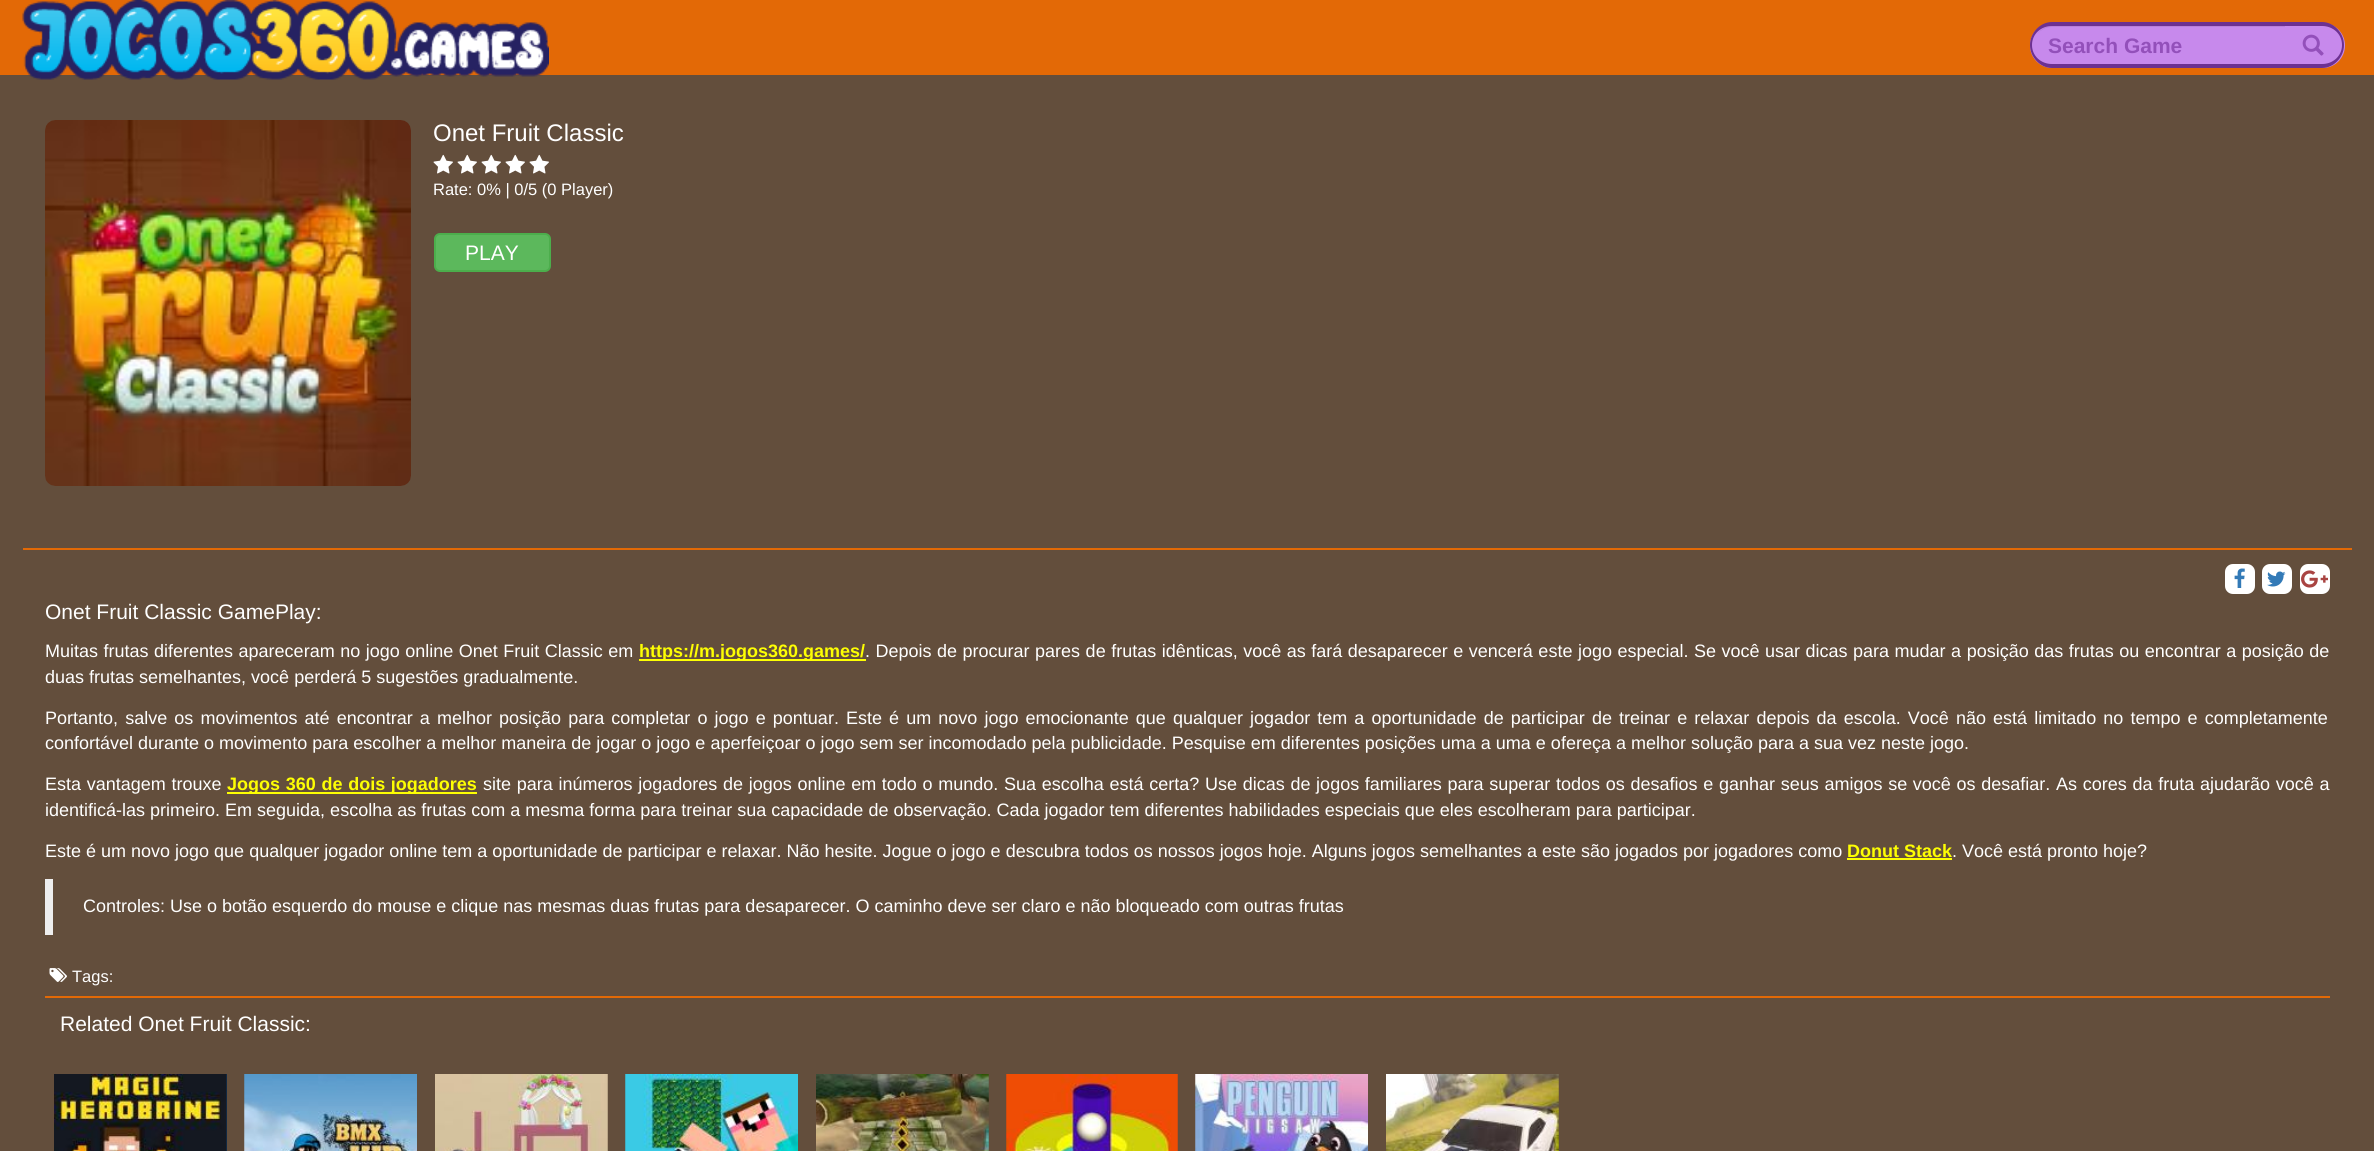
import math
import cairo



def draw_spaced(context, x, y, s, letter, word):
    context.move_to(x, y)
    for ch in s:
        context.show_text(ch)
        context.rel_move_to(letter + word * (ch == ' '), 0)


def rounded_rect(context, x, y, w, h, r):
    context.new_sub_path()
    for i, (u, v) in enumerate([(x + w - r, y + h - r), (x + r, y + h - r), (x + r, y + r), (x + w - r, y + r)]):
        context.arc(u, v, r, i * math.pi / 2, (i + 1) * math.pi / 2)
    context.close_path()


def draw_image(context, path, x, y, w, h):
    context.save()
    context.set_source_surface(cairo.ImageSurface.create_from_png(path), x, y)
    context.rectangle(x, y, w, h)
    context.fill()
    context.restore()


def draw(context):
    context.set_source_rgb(99 / 255, 78 / 255, 60 / 255)
    context.paint()
    context.set_source_rgb(227 / 255, 105 / 255, 6 / 255)
    context.rectangle(0, 0, 2374, 75)
    context.fill()
    draw_image(context, "images/1.png", 22, 0, 527, 80)
    context.set_source_rgb(199 / 255, 137 / 255, 236 / 255)
    context.new_path()
    context.move_to(2052.5, 23)
    context.line_to(2286, 23)
    context.line_to(2286, 68)
    context.line_to(2052.5, 68)
    context.curve_to(2040, 68, 2030, 58, 2030, 45.5)
    context.curve_to(2030, 33, 2040, 23, 2052.5, 23)
    context.close_path()
    context.fill()
    context.set_source_rgb(184 / 255, 127 / 255, 218 / 255)
    context.new_path()
    context.move_to(2052, 27)
    context.line_to(2286, 27)
    context.line_to(2286, 26)
    context.line_to(2052, 26)
    context.curve_to(2046, 26, 2041, 29, 2037, 34)
    context.curve_to(2041, 30, 2046, 27, 2052, 27)
    context.close_path()
    context.fill()
    context.set_source_rgb(109 / 255, 49 / 255, 145 / 255)
    context.set_fill_rule(cairo.FillRule.EVEN_ODD)
    context.new_path()
    context.move_to(2052, 22)
    context.line_to(2286, 22)
    context.line_to(2286, 68)
    context.line_to(2052, 68)
    context.curve_to(2040, 68, 2030, 57, 2030, 45)
    context.curve_to(2030, 33, 2040, 22, 2052, 22)
    context.close_path()
    context.move_to(2052, 26)
    context.line_to(2286, 26)
    context.line_to(2286, 64)
    context.line_to(2052, 64)
    context.curve_to(2041, 64, 2032, 56, 2032, 45)
    context.curve_to(2032, 34, 2041, 26, 2052, 26)
    context.close_path()
    context.fill()
    context.set_source_rgb(199 / 255, 137 / 255, 236 / 255)
    context.new_path()
    context.move_to(2285, 23)
    context.line_to(2322.5, 23)
    context.curve_to(2335, 23, 2345, 33, 2345, 45.5)
    context.curve_to(2345, 58, 2335, 68, 2322.5, 68)
    context.line_to(2285, 68)
    context.close_path()
    context.fill()
    context.set_source_rgb(109 / 255, 49 / 255, 145 / 255)
    context.new_path()
    context.move_to(2284, 22)
    context.line_to(2322, 22)
    context.curve_to(2334, 22, 2344, 33, 2344, 45)
    context.curve_to(2344, 57, 2334, 68, 2322, 68)
    context.line_to(2284, 68)
    context.close_path()
    context.move_to(2284, 26)
    context.line_to(2322, 26)
    context.curve_to(2333, 26, 2342, 34, 2342, 45)
    context.curve_to(2342, 56, 2333, 64, 2322, 64)
    context.line_to(2284, 64)
    context.close_path()
    context.fill()
    draw_image(context, "images/2.png", 2302, 34, 22, 22)
    draw_image(context, "images/3.png", 45, 120, 366, 366)
    draw_image(context, "images/4.png", 433, 154, 20, 20)
    draw_image(context, "images/4.png", 457, 154, 20, 20)
    draw_image(context, "images/4.png", 481, 154, 20, 20)
    draw_image(context, "images/4.png", 505, 154, 20, 20)
    draw_image(context, "images/4.png", 529, 154, 20, 20)
    context.set_source_rgb(92 / 255, 184 / 255, 92 / 255)
    rounded_rect(context, 435, 234, 115, 37, 5)
    context.fill_preserve()
    context.set_source_rgb(76 / 255, 174 / 255, 76 / 255)
    context.stroke()
    context.set_source_rgb(226 / 255, 105 / 255, 6 / 255)
    context.rectangle(23, 548, 2329, 2)
    context.fill()
    context.set_source_rgb(1, 1, 1)
    rounded_rect(context, 2225, 564, 30, 30, 8)
    context.fill()
    draw_image(context, "images/5.png", 2234, 568, 11, 20)
    rounded_rect(context, 2262, 564, 30, 30, 8)
    context.fill()
    draw_image(context, "images/6.png", 2267, 571, 19, 16)
    rounded_rect(context, 2300, 564, 30, 30, 8)
    context.fill()
    draw_image(context, "images/7.png", 2301, 570, 27, 18)
    context.set_source_rgb(253 / 255, 254 / 255, 3 / 255)
    context.rectangle(639, 659, 227, 2)
    context.fill()
    context.rectangle(227, 792, 250, 2)
    context.fill()
    context.rectangle(1847, 858, 105, 2)
    context.fill()
    context.set_source_rgb(238 / 255, 238 / 255, 238 / 255)
    context.rectangle(45, 879, 8, 56)
    context.fill()
    draw_image(context, "images/8.png", 49, 968, 18, 14)
    context.set_source_rgb(226 / 255, 105 / 255, 6 / 255)
    context.rectangle(45, 996, 2285, 2)
    context.fill()
    draw_image(context, "images/9.png", 54, 1074, 172, 77)
    context.set_source_rgb(17 / 255, 40 / 255, 66 / 255)
    context.rectangle(226, 1074, 1, 77)
    context.fill()
    draw_image(context, "images/10.png", 244, 1074, 173, 77)
    draw_image(context, "images/11.png", 244, 1074, 1, 77)
    draw_image(context, "images/12.png", 435, 1074, 173, 77)
    draw_image(context, "images/13.png", 607, 1074, 1, 77)
    context.set_source_rgb(68 / 255, 170 / 255, 187 / 255)
    context.rectangle(625, 1074, 1, 77)
    context.fill()
    draw_image(context, "images/14.png", 626, 1074, 172, 77)
    draw_image(context, "images/15.png", 816, 1074, 173, 77)
    draw_image(context, "images/16.png", 988, 1074, 1, 77)
    draw_image(context, "images/17.png", 1006, 1074, 172, 77)
    draw_image(context, "images/18.png", 1006, 1074, 172, 77)
    draw_image(context, "images/19.png", 1195, 1074, 173, 77)
    draw_image(context, "images/20.png", 1195, 1074, 1, 77)
    draw_image(context, "images/21.png", 1386, 1074, 173, 77)
    draw_image(context, "images/22.png", 1558, 1074, 1, 77)
    context.select_font_face("Liberation Sans", cairo.FontSlant.NORMAL, cairo.FontWeight.BOLD)
    context.set_font_size(21)
    context.set_source_rgb(147 / 255, 80 / 255, 186 / 255)
    context.move_to(2048, 53)
    context.show_text("Search Game")
    context.select_font_face("Liberation Sans")
    context.set_font_size(24)
    context.set_source_rgb(1, 1, 1)
    context.move_to(433, 141)
    context.show_text("Onet Fruit Classic")
    context.set_font_size(16.5)
    context.move_to(433, 195)
    context.show_text("Rate: 0% | 0/5 (0 Player)")
    context.set_font_size(21)
    context.move_to(465, 260)
    context.show_text("PLAY")
    context.move_to(45, 619)
    context.show_text("Onet Fruit Classic GamePlay:")
    context.set_font_size(18)
    draw_spaced(context, 45, 657, "Muitas frutas diferentes apareceram no jogo online Onet Fruit Classic em", 0, 0.5)
    context.select_font_face("Liberation Sans", cairo.FontSlant.NORMAL, cairo.FontWeight.BOLD)
    context.set_source_rgb(253 / 255, 254 / 255, 3 / 255)
    context.move_to(639, 657)
    context.show_text("https://m.jogos360.games/")
    context.select_font_face("Liberation Sans")
    context.set_source_rgb(1, 1, 1)
    draw_spaced(context, 865, 657, ". Depois de procurar pares de frutas idênticas, você as fará desaparecer e vencerá este jogo especial. Se você usar dicas para mudar a posição das frutas ou encontrar a posição de", 0, 0.5)
    context.move_to(45, 683)
    context.show_text("duas frutas semelhantes, você perderá 5 sugestões gradualmente.")
    draw_spaced(context, 45, 724, "Portanto, salve os movimentos até encontrar a melhor posição para completar o jogo e pontuar. Este é um novo jogo emocionante que qualquer jogador tem a oportunidade de participar de treinar e relaxar depois da escola. Você não está limitado no tempo e completamente", 0, 2.1)
    context.move_to(45, 749)
    context.show_text("confortável durante o movimento para escolher a melhor maneira de jogar o jogo e aperfeiçoar o jogo sem ser incomodado pela publicidade. Pesquise em diferentes posições uma a uma e ofereça a melhor solução para a sua vez neste jogo.")
    draw_spaced(context, 45, 790, "Esta vantagem trouxe", 0, 0.7)
    context.select_font_face("Liberation Sans", cairo.FontSlant.NORMAL, cairo.FontWeight.BOLD)
    context.set_source_rgb(253 / 255, 254 / 255, 3 / 255)
    draw_spaced(context, 227, 790, "Jogos 360 de dois jogadores", 0, 0.7)
    context.select_font_face("Liberation Sans")
    context.set_source_rgb(1, 1, 1)
    draw_spaced(context, 483, 790, "site para inúmeros jogadores de jogos online em todo o mundo. Sua escolha está certa? Use dicas de jogos familiares para superar todos os desafios e ganhar seus amigos se você os desafiar. As cores da fruta ajudarão você a", 0, 0.7)
    context.move_to(45, 816)
    context.show_text("identificá-las primeiro. Em seguida, escolha as frutas com a mesma forma para treinar sua capacidade de observação. Cada jogador tem diferentes habilidades especiais que eles escolheram para participar.")
    context.move_to(45, 857)
    context.show_text("Este é um novo jogo que qualquer jogador online tem a oportunidade de participar e relaxar. Não hesite. Jogue o jogo e descubra todos os nossos jogos hoje. Alguns jogos semelhantes a este são jogados por jogadores como")
    context.select_font_face("Liberation Sans", cairo.FontSlant.NORMAL, cairo.FontWeight.BOLD)
    context.set_source_rgb(253 / 255, 254 / 255, 3 / 255)
    context.move_to(1847, 857)
    context.show_text("Donut Stack")
    context.select_font_face("Liberation Sans")
    context.set_source_rgb(1, 1, 1)
    context.move_to(1952, 857)
    context.show_text(". Você está pronto hoje?")
    context.move_to(83, 912)
    context.show_text("Controles: Use o botão esquerdo do mouse e clique nas mesmas duas frutas para desaparecer. O caminho deve ser claro e não bloqueado com outras frutas")
    context.set_font_size(16.5)
    context.move_to(72, 982)
    context.show_text("Tags:")
    context.set_font_size(21)
    context.move_to(60, 1031)
    context.show_text("Related Onet Fruit Classic:")


surface = cairo.ImageSurface(cairo.Format.RGB24, 2374, 1151)
context = cairo.Context(surface)
options = cairo.FontOptions()
options.set_hint_metrics(cairo.HintMetrics.OFF)
options.set_hint_style(cairo.HintStyle.NONE)
context.set_font_options(options)
context.set_miter_limit(4)
draw(context)
surface.write_to_png("out.png")
